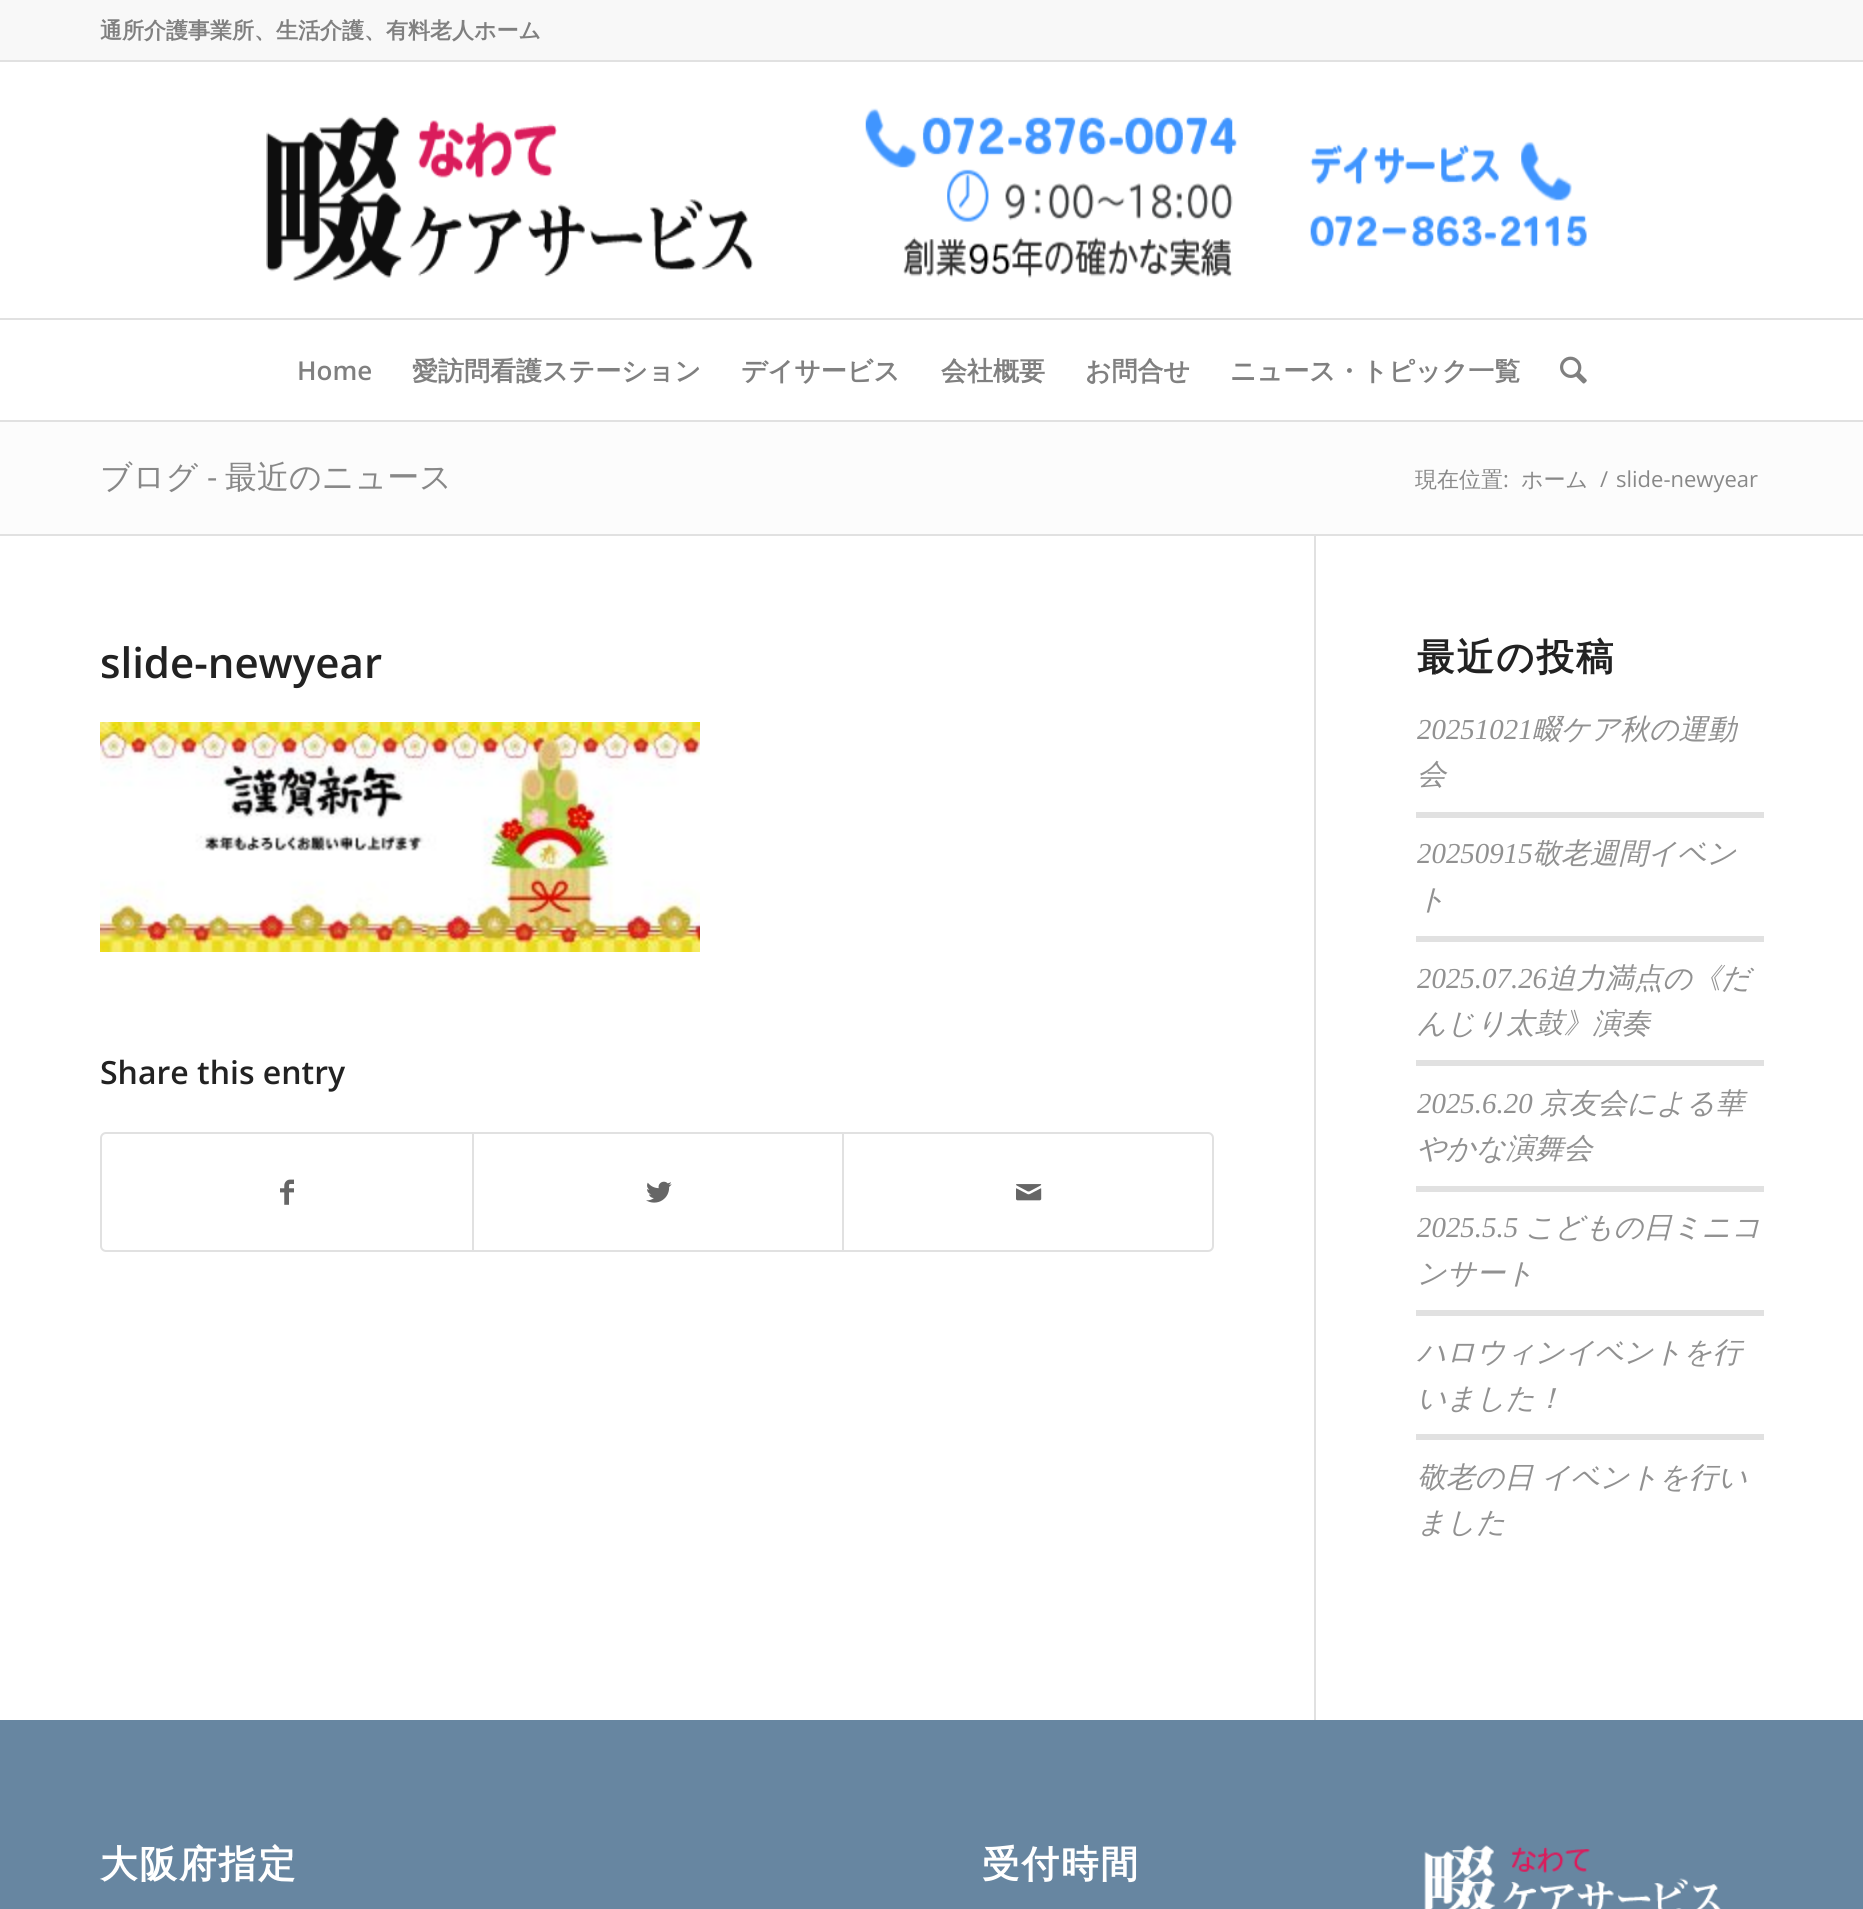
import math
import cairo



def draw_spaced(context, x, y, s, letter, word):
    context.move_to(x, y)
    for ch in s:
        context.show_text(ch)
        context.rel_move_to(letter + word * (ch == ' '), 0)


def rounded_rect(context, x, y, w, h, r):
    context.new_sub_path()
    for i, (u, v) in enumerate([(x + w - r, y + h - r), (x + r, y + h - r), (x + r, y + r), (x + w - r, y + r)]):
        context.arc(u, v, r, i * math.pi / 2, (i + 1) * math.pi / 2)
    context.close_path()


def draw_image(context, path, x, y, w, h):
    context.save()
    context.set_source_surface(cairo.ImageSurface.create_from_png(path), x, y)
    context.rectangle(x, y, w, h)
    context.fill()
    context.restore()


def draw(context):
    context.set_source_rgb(1, 1, 1)
    context.paint()
    context.set_source_rgb(248 / 255, 248 / 255, 248 / 255)
    context.rectangle(0, 0, 1863, 60)
    context.fill()
    context.set_source_rgb(225 / 255, 225 / 255, 225 / 255)
    context.rectangle(0, 60, 1863, 2)
    context.fill()
    context.rectangle(0, 420, 1863, 2)
    context.fill()
    draw_image(context, "images/1.png", 266, 108, 1321, 173)
    context.rectangle(0, 318, 1863, 2)
    context.fill()
    draw_image(context, "images/2.png", 1560, 356, 27, 28)
    context.set_source_rgb(252 / 255, 252 / 255, 252 / 255)
    context.rectangle(0, 422, 1863, 112)
    context.fill()
    context.set_source_rgb(225 / 255, 225 / 255, 225 / 255)
    context.rectangle(0, 534, 1863, 2)
    context.fill()
    draw_image(context, "images/3.png", 100, 722, 600, 230)
    rounded_rect(context, 101, 1133, 1112, 118, 5)
    context.stroke()
    draw_image(context, "images/4.png", 280, 1179, 14, 26)
    context.rectangle(472, 1134, 2, 116)
    context.fill()
    draw_image(context, "images/5.png", 646, 1181, 26, 22)
    context.rectangle(842, 1134, 2, 116)
    context.fill()
    draw_image(context, "images/6.png", 1016, 1184, 26, 17)
    context.rectangle(1314, 536, 2, 1184)
    context.fill()
    context.rectangle(1416, 812, 348, 6)
    context.fill()
    context.rectangle(1416, 936, 348, 6)
    context.fill()
    context.rectangle(1416, 1060, 348, 6)
    context.fill()
    context.rectangle(1416, 1186, 348, 6)
    context.fill()
    context.rectangle(1416, 1310, 348, 6)
    context.fill()
    context.rectangle(1416, 1434, 348, 6)
    context.fill()
    context.set_source_rgb(103 / 255, 134 / 255, 161 / 255)
    context.rectangle(0, 1720, 1863, 189)
    context.fill()
    draw_image(context, "images/7.png", 1424, 1845, 297, 64)
    context.select_font_face("WenQuanYi Zen Hei", cairo.FontSlant.NORMAL, cairo.FontWeight.BOLD)
    context.set_font_size(22)
    context.set_source_rgb(128 / 255, 128 / 255, 128 / 255)
    context.move_to(100, 38)
    context.show_text("通所介護事業所、生活介護、有料老人ホーム")
    context.select_font_face("Open Sans SemiBold")
    context.set_font_size(26)
    context.move_to(297, 380)
    context.show_text("Home")
    context.select_font_face("WenQuanYi Zen Hei", cairo.FontSlant.NORMAL, cairo.FontWeight.BOLD)
    context.move_to(412, 380)
    context.show_text("愛訪問看護ステーション")
    context.move_to(741, 380)
    context.show_text("デイサービス")
    context.move_to(941, 380)
    context.show_text("会社概要")
    context.move_to(1085, 380)
    context.show_text("お問合せ")
    context.move_to(1230, 380)
    context.show_text("ニュース・トピック一覧")
    context.select_font_face("WenQuanYi Zen Hei Medium")
    context.set_font_size(32)
    context.set_source_rgb(136 / 255, 136 / 255, 136 / 255)
    context.move_to(100, 488)
    context.show_text("ブログ")
    context.select_font_face("Open Sans")
    context.move_to(207, 488)
    context.show_text("-")
    context.select_font_face("WenQuanYi Zen Hei Medium")
    context.move_to(225, 488)
    context.show_text("最近のニュース")
    context.set_font_size(22)
    context.move_to(1415, 487)
    context.show_text("現在位置")
    context.select_font_face("Open Sans")
    context.move_to(1503, 487)
    context.show_text(":")
    context.select_font_face("WenQuanYi Zen Hei Medium")
    context.move_to(1521, 487)
    context.show_text("ホーム")
    context.select_font_face("Open Sans")
    context.move_to(1600, 487)
    context.show_text("/")
    context.move_to(1616, 487)
    context.show_text("slide-newyear")
    context.select_font_face("Open Sans SemiBold")
    context.set_font_size(42)
    context.set_source_rgb(34 / 255, 34 / 255, 34 / 255)
    context.move_to(100, 678)
    context.show_text("slide-newyear")
    context.set_font_size(32)
    context.move_to(100, 1084)
    context.show_text("Share this entry")
    context.select_font_face("WenQuanYi Zen Hei", cairo.FontSlant.NORMAL, cairo.FontWeight.BOLD)
    context.set_font_size(37.5)
    draw_spaced(context, 1417, 670, "最近の投稿", 2, 0)
    context.select_font_face("Liberation Serif", cairo.FontSlant.ITALIC)
    context.set_font_size(28.9)
    context.set_source_rgb(145 / 255, 145 / 255, 145 / 255)
    context.move_to(1417, 739)
    context.show_text("20251021")
    context.select_font_face("WenQuanYi Zen Hei Medium", cairo.FontSlant.ITALIC)
    context.move_to(1532, 739)
    context.show_text("畷ケア秋の運動")
    context.move_to(1417, 784)
    context.show_text("会")
    context.select_font_face("Liberation Serif", cairo.FontSlant.ITALIC)
    context.move_to(1417, 863)
    context.show_text("20250915")
    context.select_font_face("WenQuanYi Zen Hei Medium", cairo.FontSlant.ITALIC)
    context.move_to(1532, 863)
    context.show_text("敬老週間イベン")
    context.move_to(1417, 909)
    context.show_text("ト")
    context.select_font_face("Liberation Serif", cairo.FontSlant.ITALIC)
    context.move_to(1417, 988)
    context.show_text("2025.07.26")
    context.select_font_face("WenQuanYi Zen Hei Medium", cairo.FontSlant.ITALIC)
    context.move_to(1547, 988)
    context.show_text("迫力満点の《だ")
    context.move_to(1417, 1033)
    context.show_text("んじり太鼓》演奏")
    context.select_font_face("Liberation Serif", cairo.FontSlant.ITALIC)
    context.move_to(1417, 1113)
    context.show_text("2025.6.20")
    context.select_font_face("WenQuanYi Zen Hei Medium", cairo.FontSlant.ITALIC)
    context.move_to(1540, 1113)
    context.show_text("京友会による華")
    context.move_to(1417, 1158)
    context.show_text("やかな演舞会")
    context.select_font_face("Liberation Serif", cairo.FontSlant.ITALIC)
    context.move_to(1417, 1237)
    context.show_text("2025.5.5")
    context.select_font_face("WenQuanYi Zen Hei Medium", cairo.FontSlant.ITALIC)
    context.move_to(1525, 1237)
    context.show_text("こどもの日ミニコ")
    context.move_to(1417, 1283)
    context.show_text("ンサート")
    context.move_to(1417, 1362)
    context.show_text("ハロウィンイベントを行")
    context.move_to(1417, 1408)
    context.show_text("いました！")
    draw_spaced(context, 1417, 1487, "敬老の日 イベントを行い", 0, -1)
    context.move_to(1417, 1532)
    context.show_text("ました")
    context.select_font_face("WenQuanYi Zen Hei", cairo.FontSlant.NORMAL, cairo.FontWeight.BOLD)
    context.set_font_size(37.5)
    context.set_source_rgb(1, 1, 1)
    draw_spaced(context, 100, 1877, "大阪府指定", 2, 0)
    draw_spaced(context, 982, 1877, "受付時間", 2, 0)


surface = cairo.ImageSurface(cairo.Format.RGB24, 1863, 1909)
context = cairo.Context(surface)
options = cairo.FontOptions()
options.set_hint_metrics(cairo.HintMetrics.OFF)
options.set_hint_style(cairo.HintStyle.NONE)
context.set_font_options(options)
context.set_miter_limit(4)
draw(context)
surface.write_to_png("out.png")
